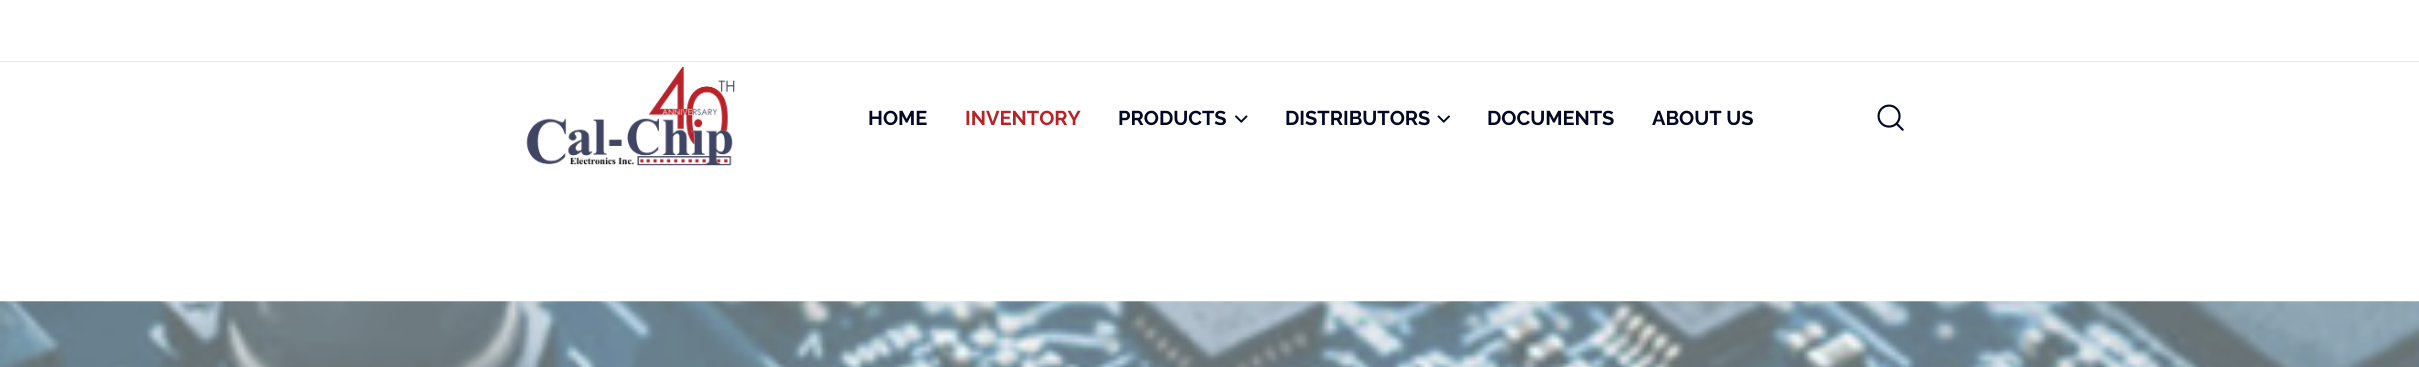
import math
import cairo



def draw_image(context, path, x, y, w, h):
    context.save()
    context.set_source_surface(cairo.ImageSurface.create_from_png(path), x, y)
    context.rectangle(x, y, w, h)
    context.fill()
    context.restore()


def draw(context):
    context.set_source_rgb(1, 1, 1)
    context.paint()
    context.set_source_rgb(236 / 255, 236 / 255, 236 / 255)
    context.rectangle(0, 61, 2419, 1)
    context.fill()
    draw_image(context, "images/1.png", 526, 66, 209, 100)
    draw_image(context, "images/2.png", 1235, 115, 13, 8)
    draw_image(context, "images/3.png", 1437, 115, 13, 8)
    draw_image(context, "images/4.png", 1877, 104, 27, 27)
    draw_image(context, "images/5.png", 0, 301, 2419, 66)
    context.select_font_face("Raleway", cairo.FontSlant.NORMAL, cairo.FontWeight.BOLD)
    context.set_font_size(20)
    context.set_source_rgb(3 / 255, 9 / 255, 37 / 255)
    context.move_to(868, 125)
    context.show_text("HOME")
    context.set_source_rgb(185 / 255, 35 / 255, 39 / 255)
    context.move_to(965, 125)
    context.show_text("INVENTORY")
    context.set_source_rgb(3 / 255, 9 / 255, 37 / 255)
    context.move_to(1118, 125)
    context.show_text("PRODUCTS")
    context.move_to(1285, 125)
    context.show_text("DISTRIBUTORS")
    context.move_to(1487, 125)
    context.show_text("DOCUMENTS")
    context.move_to(1652, 125)
    context.show_text("ABOUT US")


surface = cairo.ImageSurface(cairo.Format.RGB24, 2419, 367)
context = cairo.Context(surface)
options = cairo.FontOptions()
options.set_hint_metrics(cairo.HintMetrics.OFF)
options.set_hint_style(cairo.HintStyle.NONE)
context.set_font_options(options)
context.set_miter_limit(4)
draw(context)
surface.write_to_png("out.png")
